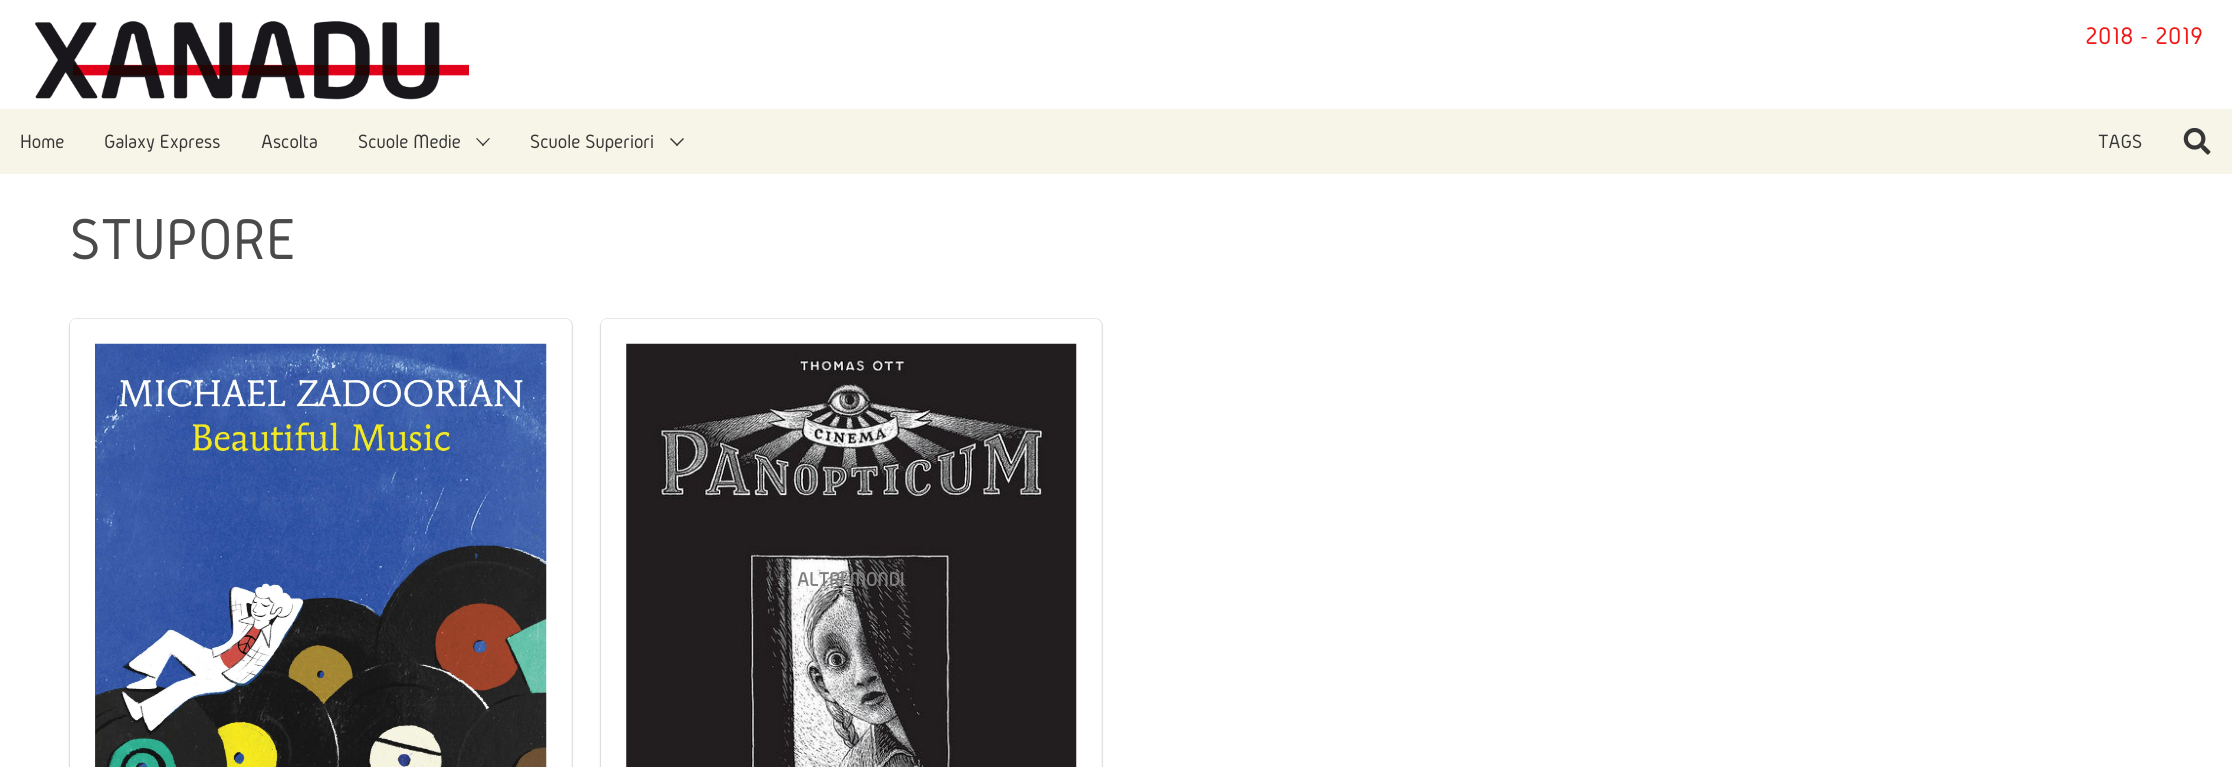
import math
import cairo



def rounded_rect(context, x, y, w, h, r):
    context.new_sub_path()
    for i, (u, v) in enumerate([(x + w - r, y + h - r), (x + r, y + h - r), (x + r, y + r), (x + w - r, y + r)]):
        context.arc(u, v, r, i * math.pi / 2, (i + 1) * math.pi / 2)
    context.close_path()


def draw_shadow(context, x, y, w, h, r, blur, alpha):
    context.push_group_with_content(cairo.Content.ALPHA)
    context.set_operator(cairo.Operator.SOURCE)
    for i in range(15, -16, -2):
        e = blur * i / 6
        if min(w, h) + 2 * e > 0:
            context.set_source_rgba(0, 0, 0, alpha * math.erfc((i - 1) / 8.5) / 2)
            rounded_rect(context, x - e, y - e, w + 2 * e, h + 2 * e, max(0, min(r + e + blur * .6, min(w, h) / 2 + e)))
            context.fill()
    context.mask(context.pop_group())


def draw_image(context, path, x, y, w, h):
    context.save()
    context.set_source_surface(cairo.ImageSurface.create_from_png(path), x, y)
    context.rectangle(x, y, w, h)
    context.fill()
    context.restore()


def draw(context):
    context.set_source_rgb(1, 1, 1)
    context.paint()
    draw_image(context, "images/1.png", 34, 21, 435, 79)
    context.set_source_rgb(247 / 255, 245 / 255, 231 / 255)
    context.rectangle(0, 109, 2232, 65)
    context.fill()
    context.set_source_rgb(54 / 255, 54 / 255, 54 / 255)
    context.new_path()
    context.move_to(482, 145)
    context.line_to(489, 138)
    context.line_to(490, 138.5)
    context.line_to(483, 146)
    context.close_path()
    context.fill()
    context.new_path()
    context.move_to(476, 138.5)
    context.line_to(477, 138)
    context.line_to(484, 145)
    context.line_to(483, 146)
    context.close_path()
    context.fill()
    context.new_path()
    context.move_to(676, 145)
    context.line_to(683, 138)
    context.line_to(684, 139)
    context.line_to(677, 146)
    context.close_path()
    context.fill()
    context.new_path()
    context.move_to(670, 139)
    context.line_to(671, 138)
    context.line_to(678, 145)
    context.line_to(677, 146)
    context.close_path()
    context.fill()
    draw_image(context, "images/2.png", 2183, 127, 28, 28)
    rounded_rect(context, 69.5, 318.5, 503, 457, 7.5)
    context.set_source_rgb(231 / 255, 231 / 255, 231 / 255)
    context.set_line_width(1)
    context.stroke()
    context.set_source_rgb(10 / 255, 10 / 255, 10 / 255)
    draw_shadow(context, 70, 321, 501, 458, 6, 2, 0.1)
    context.set_source_rgb(1, 1, 1)
    rounded_rect(context, 70, 319, 501, 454, 6)
    context.fill()
    draw_image(context, "images/3.png", 95, 343, 452, 424)
    rounded_rect(context, 600.5, 318.5, 502, 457, 7.5)
    context.set_source_rgb(231 / 255, 231 / 255, 231 / 255)
    context.stroke()
    context.set_source_rgb(10 / 255, 10 / 255, 10 / 255)
    draw_shadow(context, 601, 321, 500, 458, 6, 2, 0.1)
    context.set_source_rgb(1, 1, 1)
    rounded_rect(context, 601, 319, 500, 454, 6)
    context.fill()
    draw_image(context, "images/4.png", 626, 343, 451, 424)
    context.select_font_face("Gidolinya")
    context.set_font_size(25)
    context.set_source_rgb(240 / 255, 24 / 255, 23 / 255)
    context.move_to(2085, 44)
    context.show_text("2018 - 2019")
    context.set_font_size(20)
    context.set_source_rgb(54 / 255, 54 / 255, 54 / 255)
    context.move_to(20, 148)
    context.show_text("Home")
    context.move_to(104, 148)
    context.show_text("Galaxy Express")
    context.move_to(261, 148)
    context.show_text("Ascolta")
    context.move_to(358, 148)
    context.show_text("Scuole Medie")
    context.move_to(530, 148)
    context.show_text("Scuole Superiori")
    context.move_to(2098, 148)
    context.show_text("TAGS")
    context.set_font_size(60)
    context.set_source_rgb(74 / 255, 74 / 255, 74 / 255)
    context.move_to(70, 259)
    context.show_text("STUPORE")
    context.select_font_face("Gidolinya", cairo.FontSlant.NORMAL, cairo.FontWeight.BOLD)
    context.set_font_size(20)
    context.set_source_rgb(49 / 255, 78 / 255, 144 / 255)
    context.move_to(474, 556)
    context.show_text(",")
    context.set_source_rgb(129 / 255, 128 / 255, 128 / 255)
    context.move_to(797, 586)
    context.show_text("ALTRI MONDI")


surface = cairo.ImageSurface(cairo.Format.RGB24, 2232, 767)
context = cairo.Context(surface)
options = cairo.FontOptions()
options.set_hint_metrics(cairo.HintMetrics.OFF)
options.set_hint_style(cairo.HintStyle.NONE)
context.set_font_options(options)
context.set_miter_limit(4)
draw(context)
surface.write_to_png("out.png")
